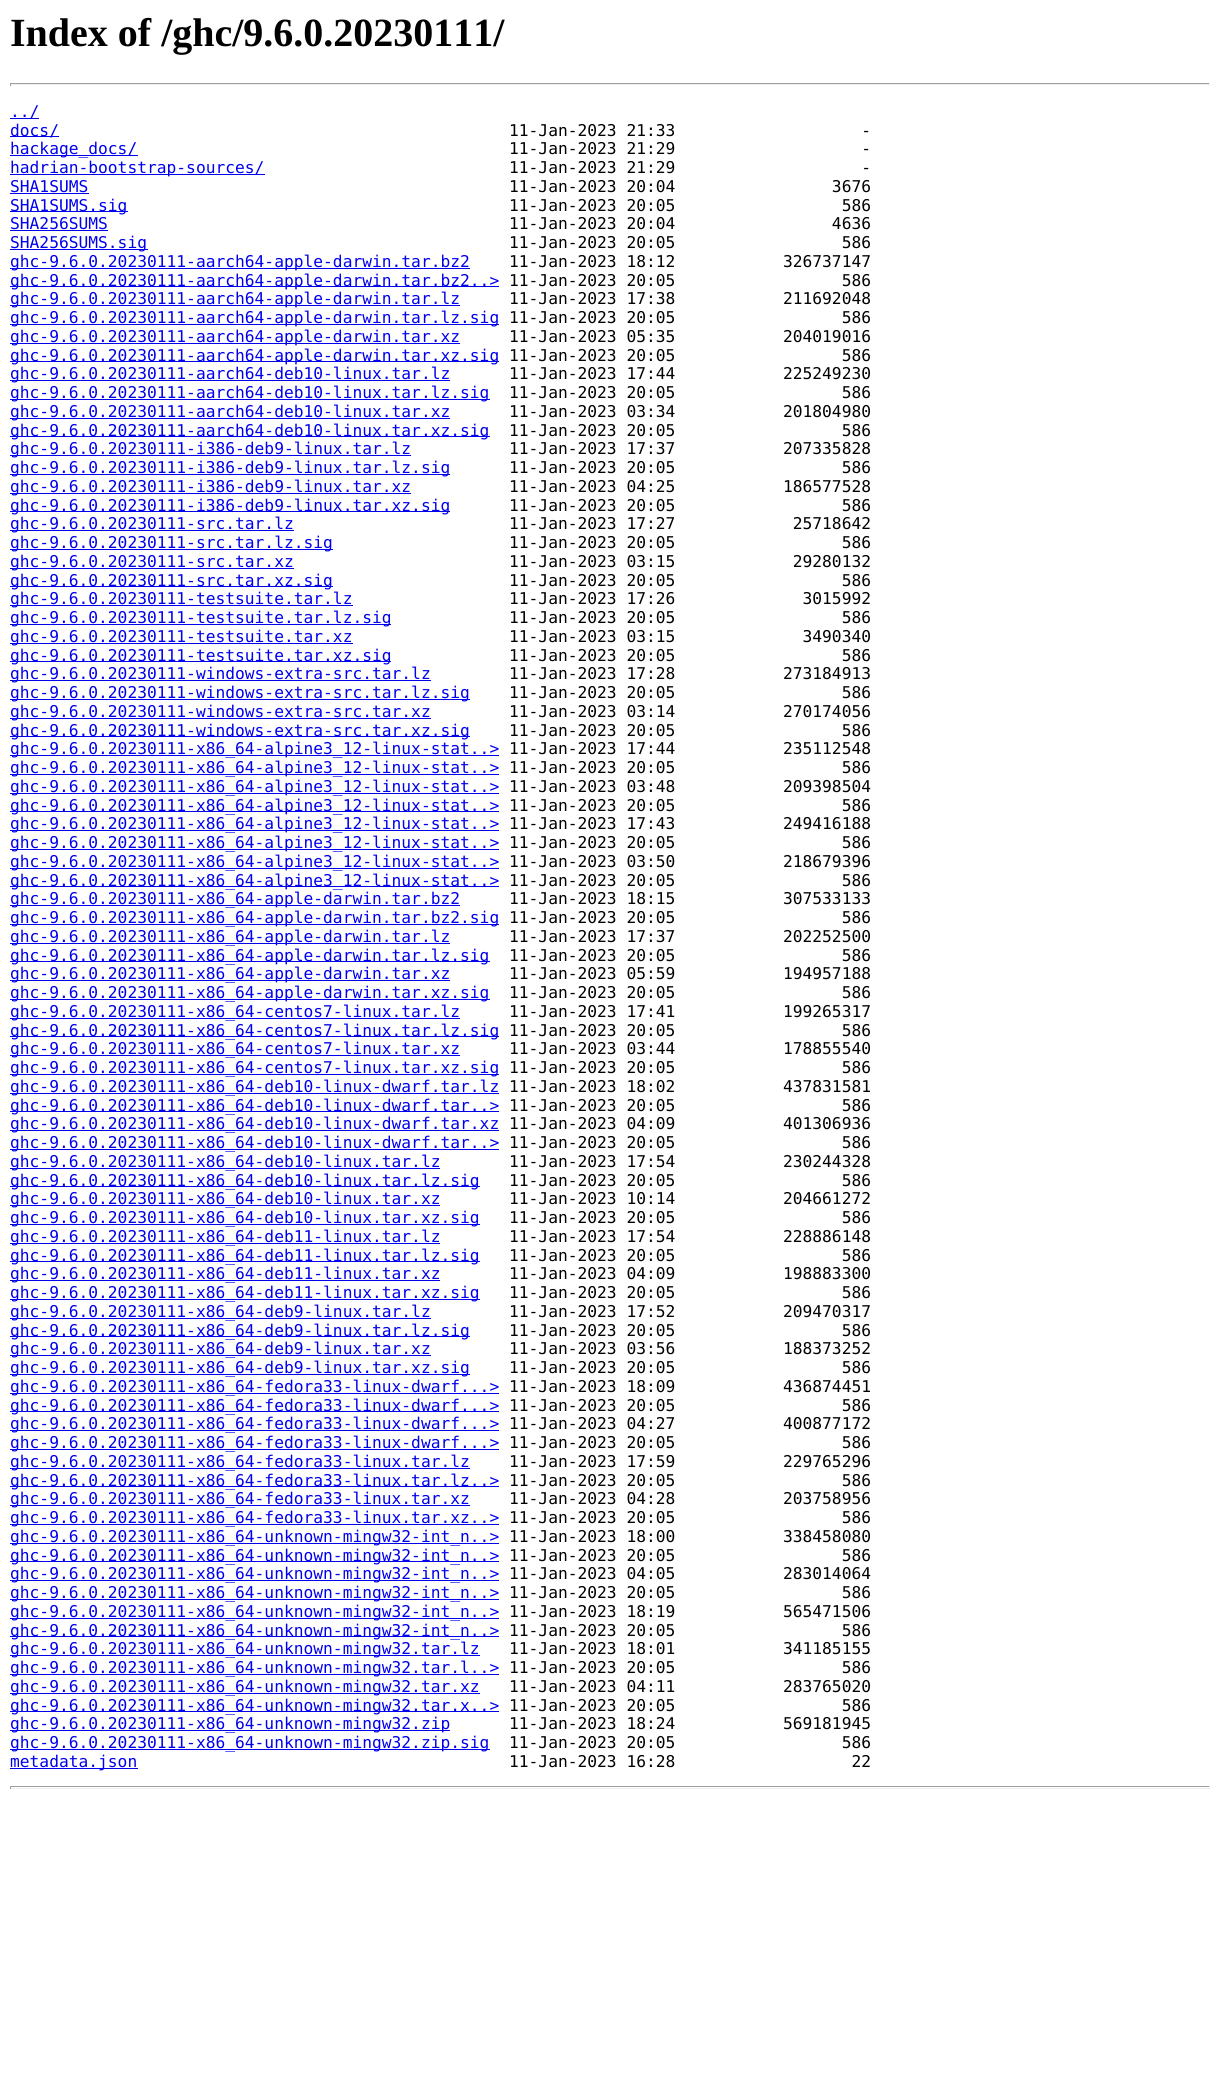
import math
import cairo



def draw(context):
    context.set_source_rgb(1, 1, 1)
    context.paint()
    context.set_source_rgb(159 / 255, 159 / 255, 159 / 255)
    context.rectangle(10, 83, 1200, 1)
    context.fill()
    context.set_source_rgb(238 / 255, 238 / 255, 238 / 255)
    context.rectangle(1209, 83, 1, 3)
    context.fill()
    context.rectangle(10, 84, 1200, 1)
    context.fill()
    context.set_source_rgb(159 / 255, 159 / 255, 159 / 255)
    context.rectangle(10, 83, 1, 3)
    context.fill()
    context.set_source_rgb(0, 0, 238 / 255)
    context.rectangle(10, 118, 29, 1)
    context.fill()
    context.rectangle(10, 136, 49, 1)
    context.fill()
    context.rectangle(10, 155, 128, 1)
    context.fill()
    context.rectangle(10, 174, 255, 1)
    context.fill()
    context.rectangle(10, 193, 79, 1)
    context.fill()
    context.rectangle(10, 211, 118, 1)
    context.fill()
    context.rectangle(10, 230, 98, 1)
    context.fill()
    context.rectangle(10, 249, 138, 1)
    context.fill()
    context.rectangle(10, 268, 460, 1)
    context.fill()
    context.rectangle(10, 286, 489, 1)
    context.fill()
    context.rectangle(10, 305, 450, 1)
    context.fill()
    context.rectangle(10, 324, 489, 1)
    context.fill()
    context.rectangle(10, 343, 450, 1)
    context.fill()
    context.rectangle(10, 361, 489, 1)
    context.fill()
    context.rectangle(10, 380, 440, 1)
    context.fill()
    context.rectangle(10, 399, 480, 1)
    context.fill()
    context.rectangle(10, 418, 440, 1)
    context.fill()
    context.rectangle(10, 436, 480, 1)
    context.fill()
    context.rectangle(10, 455, 401, 1)
    context.fill()
    context.rectangle(10, 474, 440, 1)
    context.fill()
    context.rectangle(10, 493, 401, 1)
    context.fill()
    context.rectangle(10, 511, 440, 1)
    context.fill()
    context.rectangle(10, 530, 284, 1)
    context.fill()
    context.rectangle(10, 549, 323, 1)
    context.fill()
    context.rectangle(10, 568, 284, 1)
    context.fill()
    context.rectangle(10, 586, 323, 1)
    context.fill()
    context.rectangle(10, 605, 343, 1)
    context.fill()
    context.rectangle(10, 624, 381, 1)
    context.fill()
    context.rectangle(10, 643, 343, 1)
    context.fill()
    context.rectangle(10, 661, 381, 1)
    context.fill()
    context.rectangle(10, 680, 421, 1)
    context.fill()
    context.rectangle(10, 699, 460, 1)
    context.fill()
    context.rectangle(10, 718, 421, 1)
    context.fill()
    context.rectangle(10, 736, 460, 1)
    context.fill()
    context.rectangle(10, 755, 489, 1)
    context.fill()
    context.rectangle(10, 774, 489, 1)
    context.fill()
    context.rectangle(10, 793, 489, 1)
    context.fill()
    context.rectangle(10, 811, 489, 1)
    context.fill()
    context.rectangle(10, 830, 489, 1)
    context.fill()
    context.rectangle(10, 849, 489, 1)
    context.fill()
    context.rectangle(10, 868, 489, 1)
    context.fill()
    context.rectangle(10, 886, 489, 1)
    context.fill()
    context.rectangle(10, 905, 450, 1)
    context.fill()
    context.rectangle(10, 924, 489, 1)
    context.fill()
    context.rectangle(10, 943, 440, 1)
    context.fill()
    context.rectangle(10, 961, 480, 1)
    context.fill()
    context.rectangle(10, 980, 440, 1)
    context.fill()
    context.rectangle(10, 999, 480, 1)
    context.fill()
    context.rectangle(10, 1018, 450, 1)
    context.fill()
    context.rectangle(10, 1036, 489, 1)
    context.fill()
    context.rectangle(10, 1055, 450, 1)
    context.fill()
    context.rectangle(10, 1074, 489, 1)
    context.fill()
    context.rectangle(10, 1093, 489, 1)
    context.fill()
    context.rectangle(10, 1111, 489, 1)
    context.fill()
    context.rectangle(10, 1130, 489, 1)
    context.fill()
    context.rectangle(10, 1149, 489, 1)
    context.fill()
    context.rectangle(10, 1168, 430, 1)
    context.fill()
    context.rectangle(10, 1186, 470, 1)
    context.fill()
    context.rectangle(10, 1205, 430, 1)
    context.fill()
    context.rectangle(10, 1224, 470, 1)
    context.fill()
    context.rectangle(10, 1243, 430, 1)
    context.fill()
    context.rectangle(10, 1261, 470, 1)
    context.fill()
    context.rectangle(10, 1280, 430, 1)
    context.fill()
    context.rectangle(10, 1299, 470, 1)
    context.fill()
    context.rectangle(10, 1318, 421, 1)
    context.fill()
    context.rectangle(10, 1336, 460, 1)
    context.fill()
    context.rectangle(10, 1355, 421, 1)
    context.fill()
    context.rectangle(10, 1374, 460, 1)
    context.fill()
    context.rectangle(10, 1393, 489, 1)
    context.fill()
    context.rectangle(10, 1411, 489, 1)
    context.fill()
    context.rectangle(10, 1430, 489, 1)
    context.fill()
    context.rectangle(10, 1449, 489, 1)
    context.fill()
    context.rectangle(10, 1468, 460, 1)
    context.fill()
    context.rectangle(10, 1486, 489, 1)
    context.fill()
    context.rectangle(10, 1505, 460, 1)
    context.fill()
    context.rectangle(10, 1524, 489, 1)
    context.fill()
    context.rectangle(10, 1543, 489, 1)
    context.fill()
    context.rectangle(10, 1561, 489, 1)
    context.fill()
    context.rectangle(10, 1580, 489, 1)
    context.fill()
    context.rectangle(10, 1599, 489, 1)
    context.fill()
    context.rectangle(10, 1618, 489, 1)
    context.fill()
    context.rectangle(10, 1636, 489, 1)
    context.fill()
    context.rectangle(10, 1655, 470, 1)
    context.fill()
    context.rectangle(10, 1674, 489, 1)
    context.fill()
    context.rectangle(10, 1693, 470, 1)
    context.fill()
    context.rectangle(10, 1711, 489, 1)
    context.fill()
    context.rectangle(10, 1730, 440, 1)
    context.fill()
    context.rectangle(10, 1749, 480, 1)
    context.fill()
    context.rectangle(10, 1768, 128, 1)
    context.fill()
    context.set_source_rgb(159 / 255, 159 / 255, 159 / 255)
    context.rectangle(10, 1786, 1200, 1)
    context.fill()
    context.set_source_rgb(238 / 255, 238 / 255, 238 / 255)
    context.rectangle(1209, 1786, 1, 3)
    context.fill()
    context.rectangle(10, 1788, 1200, 1)
    context.fill()
    context.set_source_rgb(159 / 255, 159 / 255, 159 / 255)
    context.rectangle(10, 1786, 1, 3)
    context.fill()
    context.select_font_face("Liberation Serif", cairo.FontSlant.NORMAL, cairo.FontWeight.BOLD)
    context.set_font_size(40)
    context.set_source_rgb(0, 0, 0)
    context.move_to(10, 46)
    context.show_text("Index of /ghc/9.6.0.20230111/")
    context.select_font_face("DejaVu Sans Mono")
    context.set_font_size(16.25)
    context.set_source_rgb(0, 0, 238 / 255)
    context.move_to(10, 117)
    context.show_text("../")
    context.move_to(10, 136)
    context.show_text("docs/")
    context.set_source_rgb(0, 0, 0)
    context.move_to(509, 136)
    context.show_text("11-Jan-2023 21:33                   -")
    context.set_source_rgb(0, 0, 238 / 255)
    context.move_to(10, 154)
    context.show_text("hackage_docs/")
    context.set_source_rgb(0, 0, 0)
    context.move_to(509, 154)
    context.show_text("11-Jan-2023 21:29                   -")
    context.set_source_rgb(0, 0, 238 / 255)
    context.move_to(10, 173)
    context.show_text("hadrian-bootstrap-sources/")
    context.set_source_rgb(0, 0, 0)
    context.move_to(509, 173)
    context.show_text("11-Jan-2023 21:29                   -")
    context.set_source_rgb(0, 0, 238 / 255)
    context.move_to(10, 192)
    context.show_text("SHA1SUMS")
    context.set_source_rgb(0, 0, 0)
    context.move_to(509, 192)
    context.show_text("11-Jan-2023 20:04                3676")
    context.set_source_rgb(0, 0, 238 / 255)
    context.move_to(10, 211)
    context.show_text("SHA1SUMS.sig")
    context.set_source_rgb(0, 0, 0)
    context.move_to(509, 211)
    context.show_text("11-Jan-2023 20:05                 586")
    context.set_source_rgb(0, 0, 238 / 255)
    context.move_to(10, 229)
    context.show_text("SHA256SUMS")
    context.set_source_rgb(0, 0, 0)
    context.move_to(509, 229)
    context.show_text("11-Jan-2023 20:04                4636")
    context.set_source_rgb(0, 0, 238 / 255)
    context.move_to(10, 248)
    context.show_text("SHA256SUMS.sig")
    context.set_source_rgb(0, 0, 0)
    context.move_to(509, 248)
    context.show_text("11-Jan-2023 20:05                 586")
    context.set_source_rgb(0, 0, 238 / 255)
    context.move_to(10, 267)
    context.show_text("ghc-9.6.0.20230111-aarch64-apple-darwin.tar.bz2")
    context.set_source_rgb(0, 0, 0)
    context.move_to(509, 267)
    context.show_text("11-Jan-2023 18:12           326737147")
    context.set_source_rgb(0, 0, 238 / 255)
    context.move_to(10, 286)
    context.show_text("ghc-9.6.0.20230111-aarch64-apple-darwin.tar.bz2..>")
    context.set_source_rgb(0, 0, 0)
    context.move_to(509, 286)
    context.show_text("11-Jan-2023 20:05                 586")
    context.set_source_rgb(0, 0, 238 / 255)
    context.move_to(10, 304)
    context.show_text("ghc-9.6.0.20230111-aarch64-apple-darwin.tar.lz")
    context.set_source_rgb(0, 0, 0)
    context.move_to(509, 304)
    context.show_text("11-Jan-2023 17:38           211692048")
    context.set_source_rgb(0, 0, 238 / 255)
    context.move_to(10, 323)
    context.show_text("ghc-9.6.0.20230111-aarch64-apple-darwin.tar.lz.sig")
    context.set_source_rgb(0, 0, 0)
    context.move_to(509, 323)
    context.show_text("11-Jan-2023 20:05                 586")
    context.set_source_rgb(0, 0, 238 / 255)
    context.move_to(10, 342)
    context.show_text("ghc-9.6.0.20230111-aarch64-apple-darwin.tar.xz")
    context.set_source_rgb(0, 0, 0)
    context.move_to(509, 342)
    context.show_text("11-Jan-2023 05:35           204019016")
    context.set_source_rgb(0, 0, 238 / 255)
    context.move_to(10, 361)
    context.show_text("ghc-9.6.0.20230111-aarch64-apple-darwin.tar.xz.sig")
    context.set_source_rgb(0, 0, 0)
    context.move_to(509, 361)
    context.show_text("11-Jan-2023 20:05                 586")
    context.set_source_rgb(0, 0, 238 / 255)
    context.move_to(10, 379)
    context.show_text("ghc-9.6.0.20230111-aarch64-deb10-linux.tar.lz")
    context.set_source_rgb(0, 0, 0)
    context.move_to(509, 379)
    context.show_text("11-Jan-2023 17:44           225249230")
    context.set_source_rgb(0, 0, 238 / 255)
    context.move_to(10, 398)
    context.show_text("ghc-9.6.0.20230111-aarch64-deb10-linux.tar.lz.sig")
    context.set_source_rgb(0, 0, 0)
    context.move_to(509, 398)
    context.show_text("11-Jan-2023 20:05                 586")
    context.set_source_rgb(0, 0, 238 / 255)
    context.move_to(10, 417)
    context.show_text("ghc-9.6.0.20230111-aarch64-deb10-linux.tar.xz")
    context.set_source_rgb(0, 0, 0)
    context.move_to(509, 417)
    context.show_text("11-Jan-2023 03:34           201804980")
    context.set_source_rgb(0, 0, 238 / 255)
    context.move_to(10, 436)
    context.show_text("ghc-9.6.0.20230111-aarch64-deb10-linux.tar.xz.sig")
    context.set_source_rgb(0, 0, 0)
    context.move_to(509, 436)
    context.show_text("11-Jan-2023 20:05                 586")
    context.set_source_rgb(0, 0, 238 / 255)
    context.move_to(10, 454)
    context.show_text("ghc-9.6.0.20230111-i386-deb9-linux.tar.lz")
    context.set_source_rgb(0, 0, 0)
    context.move_to(509, 454)
    context.show_text("11-Jan-2023 17:37           207335828")
    context.set_source_rgb(0, 0, 238 / 255)
    context.move_to(10, 473)
    context.show_text("ghc-9.6.0.20230111-i386-deb9-linux.tar.lz.sig")
    context.set_source_rgb(0, 0, 0)
    context.move_to(509, 473)
    context.show_text("11-Jan-2023 20:05                 586")
    context.set_source_rgb(0, 0, 238 / 255)
    context.move_to(10, 492)
    context.show_text("ghc-9.6.0.20230111-i386-deb9-linux.tar.xz")
    context.set_source_rgb(0, 0, 0)
    context.move_to(509, 492)
    context.show_text("11-Jan-2023 04:25           186577528")
    context.set_source_rgb(0, 0, 238 / 255)
    context.move_to(10, 511)
    context.show_text("ghc-9.6.0.20230111-i386-deb9-linux.tar.xz.sig")
    context.set_source_rgb(0, 0, 0)
    context.move_to(509, 511)
    context.show_text("11-Jan-2023 20:05                 586")
    context.set_source_rgb(0, 0, 238 / 255)
    context.move_to(10, 529)
    context.show_text("ghc-9.6.0.20230111-src.tar.lz")
    context.set_source_rgb(0, 0, 0)
    context.move_to(509, 529)
    context.show_text("11-Jan-2023 17:27            25718642")
    context.set_source_rgb(0, 0, 238 / 255)
    context.move_to(10, 548)
    context.show_text("ghc-9.6.0.20230111-src.tar.lz.sig")
    context.set_source_rgb(0, 0, 0)
    context.move_to(509, 548)
    context.show_text("11-Jan-2023 20:05                 586")
    context.set_source_rgb(0, 0, 238 / 255)
    context.move_to(10, 567)
    context.show_text("ghc-9.6.0.20230111-src.tar.xz")
    context.set_source_rgb(0, 0, 0)
    context.move_to(509, 567)
    context.show_text("11-Jan-2023 03:15            29280132")
    context.set_source_rgb(0, 0, 238 / 255)
    context.move_to(10, 586)
    context.show_text("ghc-9.6.0.20230111-src.tar.xz.sig")
    context.set_source_rgb(0, 0, 0)
    context.move_to(509, 586)
    context.show_text("11-Jan-2023 20:05                 586")
    context.set_source_rgb(0, 0, 238 / 255)
    context.move_to(10, 604)
    context.show_text("ghc-9.6.0.20230111-testsuite.tar.lz")
    context.set_source_rgb(0, 0, 0)
    context.move_to(509, 604)
    context.show_text("11-Jan-2023 17:26             3015992")
    context.set_source_rgb(0, 0, 238 / 255)
    context.move_to(10, 623)
    context.show_text("ghc-9.6.0.20230111-testsuite.tar.lz.sig")
    context.set_source_rgb(0, 0, 0)
    context.move_to(509, 623)
    context.show_text("11-Jan-2023 20:05                 586")
    context.set_source_rgb(0, 0, 238 / 255)
    context.move_to(10, 642)
    context.show_text("ghc-9.6.0.20230111-testsuite.tar.xz")
    context.set_source_rgb(0, 0, 0)
    context.move_to(509, 642)
    context.show_text("11-Jan-2023 03:15             3490340")
    context.set_source_rgb(0, 0, 238 / 255)
    context.move_to(10, 661)
    context.show_text("ghc-9.6.0.20230111-testsuite.tar.xz.sig")
    context.set_source_rgb(0, 0, 0)
    context.move_to(509, 661)
    context.show_text("11-Jan-2023 20:05                 586")
    context.set_source_rgb(0, 0, 238 / 255)
    context.move_to(10, 679)
    context.show_text("ghc-9.6.0.20230111-windows-extra-src.tar.lz")
    context.set_source_rgb(0, 0, 0)
    context.move_to(509, 679)
    context.show_text("11-Jan-2023 17:28           273184913")
    context.set_source_rgb(0, 0, 238 / 255)
    context.move_to(10, 698)
    context.show_text("ghc-9.6.0.20230111-windows-extra-src.tar.lz.sig")
    context.set_source_rgb(0, 0, 0)
    context.move_to(509, 698)
    context.show_text("11-Jan-2023 20:05                 586")
    context.set_source_rgb(0, 0, 238 / 255)
    context.move_to(10, 717)
    context.show_text("ghc-9.6.0.20230111-windows-extra-src.tar.xz")
    context.set_source_rgb(0, 0, 0)
    context.move_to(509, 717)
    context.show_text("11-Jan-2023 03:14           270174056")
    context.set_source_rgb(0, 0, 238 / 255)
    context.move_to(10, 736)
    context.show_text("ghc-9.6.0.20230111-windows-extra-src.tar.xz.sig")
    context.set_source_rgb(0, 0, 0)
    context.move_to(509, 736)
    context.show_text("11-Jan-2023 20:05                 586")
    context.set_source_rgb(0, 0, 238 / 255)
    context.move_to(10, 754)
    context.show_text("ghc-9.6.0.20230111-x86_64-alpine3_12-linux-stat..>")
    context.set_source_rgb(0, 0, 0)
    context.move_to(509, 754)
    context.show_text("11-Jan-2023 17:44           235112548")
    context.set_source_rgb(0, 0, 238 / 255)
    context.move_to(10, 773)
    context.show_text("ghc-9.6.0.20230111-x86_64-alpine3_12-linux-stat..>")
    context.set_source_rgb(0, 0, 0)
    context.move_to(509, 773)
    context.show_text("11-Jan-2023 20:05                 586")
    context.set_source_rgb(0, 0, 238 / 255)
    context.move_to(10, 792)
    context.show_text("ghc-9.6.0.20230111-x86_64-alpine3_12-linux-stat..>")
    context.set_source_rgb(0, 0, 0)
    context.move_to(509, 792)
    context.show_text("11-Jan-2023 03:48           209398504")
    context.set_source_rgb(0, 0, 238 / 255)
    context.move_to(10, 811)
    context.show_text("ghc-9.6.0.20230111-x86_64-alpine3_12-linux-stat..>")
    context.set_source_rgb(0, 0, 0)
    context.move_to(509, 811)
    context.show_text("11-Jan-2023 20:05                 586")
    context.set_source_rgb(0, 0, 238 / 255)
    context.move_to(10, 829)
    context.show_text("ghc-9.6.0.20230111-x86_64-alpine3_12-linux-stat..>")
    context.set_source_rgb(0, 0, 0)
    context.move_to(509, 829)
    context.show_text("11-Jan-2023 17:43           249416188")
    context.set_source_rgb(0, 0, 238 / 255)
    context.move_to(10, 848)
    context.show_text("ghc-9.6.0.20230111-x86_64-alpine3_12-linux-stat..>")
    context.set_source_rgb(0, 0, 0)
    context.move_to(509, 848)
    context.show_text("11-Jan-2023 20:05                 586")
    context.set_source_rgb(0, 0, 238 / 255)
    context.move_to(10, 867)
    context.show_text("ghc-9.6.0.20230111-x86_64-alpine3_12-linux-stat..>")
    context.set_source_rgb(0, 0, 0)
    context.move_to(509, 867)
    context.show_text("11-Jan-2023 03:50           218679396")
    context.set_source_rgb(0, 0, 238 / 255)
    context.move_to(10, 886)
    context.show_text("ghc-9.6.0.20230111-x86_64-alpine3_12-linux-stat..>")
    context.set_source_rgb(0, 0, 0)
    context.move_to(509, 886)
    context.show_text("11-Jan-2023 20:05                 586")
    context.set_source_rgb(0, 0, 238 / 255)
    context.move_to(10, 904)
    context.show_text("ghc-9.6.0.20230111-x86_64-apple-darwin.tar.bz2")
    context.set_source_rgb(0, 0, 0)
    context.move_to(509, 904)
    context.show_text("11-Jan-2023 18:15           307533133")
    context.set_source_rgb(0, 0, 238 / 255)
    context.move_to(10, 923)
    context.show_text("ghc-9.6.0.20230111-x86_64-apple-darwin.tar.bz2.sig")
    context.set_source_rgb(0, 0, 0)
    context.move_to(509, 923)
    context.show_text("11-Jan-2023 20:05                 586")
    context.set_source_rgb(0, 0, 238 / 255)
    context.move_to(10, 942)
    context.show_text("ghc-9.6.0.20230111-x86_64-apple-darwin.tar.lz")
    context.set_source_rgb(0, 0, 0)
    context.move_to(509, 942)
    context.show_text("11-Jan-2023 17:37           202252500")
    context.set_source_rgb(0, 0, 238 / 255)
    context.move_to(10, 961)
    context.show_text("ghc-9.6.0.20230111-x86_64-apple-darwin.tar.lz.sig")
    context.set_source_rgb(0, 0, 0)
    context.move_to(509, 961)
    context.show_text("11-Jan-2023 20:05                 586")
    context.set_source_rgb(0, 0, 238 / 255)
    context.move_to(10, 979)
    context.show_text("ghc-9.6.0.20230111-x86_64-apple-darwin.tar.xz")
    context.set_source_rgb(0, 0, 0)
    context.move_to(509, 979)
    context.show_text("11-Jan-2023 05:59           194957188")
    context.set_source_rgb(0, 0, 238 / 255)
    context.move_to(10, 998)
    context.show_text("ghc-9.6.0.20230111-x86_64-apple-darwin.tar.xz.sig")
    context.set_source_rgb(0, 0, 0)
    context.move_to(509, 998)
    context.show_text("11-Jan-2023 20:05                 586")
    context.set_source_rgb(0, 0, 238 / 255)
    context.move_to(10, 1017)
    context.show_text("ghc-9.6.0.20230111-x86_64-centos7-linux.tar.lz")
    context.set_source_rgb(0, 0, 0)
    context.move_to(509, 1017)
    context.show_text("11-Jan-2023 17:41           199265317")
    context.set_source_rgb(0, 0, 238 / 255)
    context.move_to(10, 1036)
    context.show_text("ghc-9.6.0.20230111-x86_64-centos7-linux.tar.lz.sig")
    context.set_source_rgb(0, 0, 0)
    context.move_to(509, 1036)
    context.show_text("11-Jan-2023 20:05                 586")
    context.set_source_rgb(0, 0, 238 / 255)
    context.move_to(10, 1054)
    context.show_text("ghc-9.6.0.20230111-x86_64-centos7-linux.tar.xz")
    context.set_source_rgb(0, 0, 0)
    context.move_to(509, 1054)
    context.show_text("11-Jan-2023 03:44           178855540")
    context.set_source_rgb(0, 0, 238 / 255)
    context.move_to(10, 1073)
    context.show_text("ghc-9.6.0.20230111-x86_64-centos7-linux.tar.xz.sig")
    context.set_source_rgb(0, 0, 0)
    context.move_to(509, 1073)
    context.show_text("11-Jan-2023 20:05                 586")
    context.set_source_rgb(0, 0, 238 / 255)
    context.move_to(10, 1092)
    context.show_text("ghc-9.6.0.20230111-x86_64-deb10-linux-dwarf.tar.lz")
    context.set_source_rgb(0, 0, 0)
    context.move_to(509, 1092)
    context.show_text("11-Jan-2023 18:02           437831581")
    context.set_source_rgb(0, 0, 238 / 255)
    context.move_to(10, 1111)
    context.show_text("ghc-9.6.0.20230111-x86_64-deb10-linux-dwarf.tar..>")
    context.set_source_rgb(0, 0, 0)
    context.move_to(509, 1111)
    context.show_text("11-Jan-2023 20:05                 586")
    context.set_source_rgb(0, 0, 238 / 255)
    context.move_to(10, 1129)
    context.show_text("ghc-9.6.0.20230111-x86_64-deb10-linux-dwarf.tar.xz")
    context.set_source_rgb(0, 0, 0)
    context.move_to(509, 1129)
    context.show_text("11-Jan-2023 04:09           401306936")
    context.set_source_rgb(0, 0, 238 / 255)
    context.move_to(10, 1148)
    context.show_text("ghc-9.6.0.20230111-x86_64-deb10-linux-dwarf.tar..>")
    context.set_source_rgb(0, 0, 0)
    context.move_to(509, 1148)
    context.show_text("11-Jan-2023 20:05                 586")
    context.set_source_rgb(0, 0, 238 / 255)
    context.move_to(10, 1167)
    context.show_text("ghc-9.6.0.20230111-x86_64-deb10-linux.tar.lz")
    context.set_source_rgb(0, 0, 0)
    context.move_to(509, 1167)
    context.show_text("11-Jan-2023 17:54           230244328")
    context.set_source_rgb(0, 0, 238 / 255)
    context.move_to(10, 1186)
    context.show_text("ghc-9.6.0.20230111-x86_64-deb10-linux.tar.lz.sig")
    context.set_source_rgb(0, 0, 0)
    context.move_to(509, 1186)
    context.show_text("11-Jan-2023 20:05                 586")
    context.set_source_rgb(0, 0, 238 / 255)
    context.move_to(10, 1204)
    context.show_text("ghc-9.6.0.20230111-x86_64-deb10-linux.tar.xz")
    context.set_source_rgb(0, 0, 0)
    context.move_to(509, 1204)
    context.show_text("11-Jan-2023 10:14           204661272")
    context.set_source_rgb(0, 0, 238 / 255)
    context.move_to(10, 1223)
    context.show_text("ghc-9.6.0.20230111-x86_64-deb10-linux.tar.xz.sig")
    context.set_source_rgb(0, 0, 0)
    context.move_to(509, 1223)
    context.show_text("11-Jan-2023 20:05                 586")
    context.set_source_rgb(0, 0, 238 / 255)
    context.move_to(10, 1242)
    context.show_text("ghc-9.6.0.20230111-x86_64-deb11-linux.tar.lz")
    context.set_source_rgb(0, 0, 0)
    context.move_to(509, 1242)
    context.show_text("11-Jan-2023 17:54           228886148")
    context.set_source_rgb(0, 0, 238 / 255)
    context.move_to(10, 1261)
    context.show_text("ghc-9.6.0.20230111-x86_64-deb11-linux.tar.lz.sig")
    context.set_source_rgb(0, 0, 0)
    context.move_to(509, 1261)
    context.show_text("11-Jan-2023 20:05                 586")
    context.set_source_rgb(0, 0, 238 / 255)
    context.move_to(10, 1279)
    context.show_text("ghc-9.6.0.20230111-x86_64-deb11-linux.tar.xz")
    context.set_source_rgb(0, 0, 0)
    context.move_to(509, 1279)
    context.show_text("11-Jan-2023 04:09           198883300")
    context.set_source_rgb(0, 0, 238 / 255)
    context.move_to(10, 1298)
    context.show_text("ghc-9.6.0.20230111-x86_64-deb11-linux.tar.xz.sig")
    context.set_source_rgb(0, 0, 0)
    context.move_to(509, 1298)
    context.show_text("11-Jan-2023 20:05                 586")
    context.set_source_rgb(0, 0, 238 / 255)
    context.move_to(10, 1317)
    context.show_text("ghc-9.6.0.20230111-x86_64-deb9-linux.tar.lz")
    context.set_source_rgb(0, 0, 0)
    context.move_to(509, 1317)
    context.show_text("11-Jan-2023 17:52           209470317")
    context.set_source_rgb(0, 0, 238 / 255)
    context.move_to(10, 1336)
    context.show_text("ghc-9.6.0.20230111-x86_64-deb9-linux.tar.lz.sig")
    context.set_source_rgb(0, 0, 0)
    context.move_to(509, 1336)
    context.show_text("11-Jan-2023 20:05                 586")
    context.set_source_rgb(0, 0, 238 / 255)
    context.move_to(10, 1354)
    context.show_text("ghc-9.6.0.20230111-x86_64-deb9-linux.tar.xz")
    context.set_source_rgb(0, 0, 0)
    context.move_to(509, 1354)
    context.show_text("11-Jan-2023 03:56           188373252")
    context.set_source_rgb(0, 0, 238 / 255)
    context.move_to(10, 1373)
    context.show_text("ghc-9.6.0.20230111-x86_64-deb9-linux.tar.xz.sig")
    context.set_source_rgb(0, 0, 0)
    context.move_to(509, 1373)
    context.show_text("11-Jan-2023 20:05                 586")
    context.set_source_rgb(0, 0, 238 / 255)
    context.move_to(10, 1392)
    context.show_text("ghc-9.6.0.20230111-x86_64-fedora33-linux-dwarf...>")
    context.set_source_rgb(0, 0, 0)
    context.move_to(509, 1392)
    context.show_text("11-Jan-2023 18:09           436874451")
    context.set_source_rgb(0, 0, 238 / 255)
    context.move_to(10, 1411)
    context.show_text("ghc-9.6.0.20230111-x86_64-fedora33-linux-dwarf...>")
    context.set_source_rgb(0, 0, 0)
    context.move_to(509, 1411)
    context.show_text("11-Jan-2023 20:05                 586")
    context.set_source_rgb(0, 0, 238 / 255)
    context.move_to(10, 1429)
    context.show_text("ghc-9.6.0.20230111-x86_64-fedora33-linux-dwarf...>")
    context.set_source_rgb(0, 0, 0)
    context.move_to(509, 1429)
    context.show_text("11-Jan-2023 04:27           400877172")
    context.set_source_rgb(0, 0, 238 / 255)
    context.move_to(10, 1448)
    context.show_text("ghc-9.6.0.20230111-x86_64-fedora33-linux-dwarf...>")
    context.set_source_rgb(0, 0, 0)
    context.move_to(509, 1448)
    context.show_text("11-Jan-2023 20:05                 586")
    context.set_source_rgb(0, 0, 238 / 255)
    context.move_to(10, 1467)
    context.show_text("ghc-9.6.0.20230111-x86_64-fedora33-linux.tar.lz")
    context.set_source_rgb(0, 0, 0)
    context.move_to(509, 1467)
    context.show_text("11-Jan-2023 17:59           229765296")
    context.set_source_rgb(0, 0, 238 / 255)
    context.move_to(10, 1486)
    context.show_text("ghc-9.6.0.20230111-x86_64-fedora33-linux.tar.lz..>")
    context.set_source_rgb(0, 0, 0)
    context.move_to(509, 1486)
    context.show_text("11-Jan-2023 20:05                 586")
    context.set_source_rgb(0, 0, 238 / 255)
    context.move_to(10, 1504)
    context.show_text("ghc-9.6.0.20230111-x86_64-fedora33-linux.tar.xz")
    context.set_source_rgb(0, 0, 0)
    context.move_to(509, 1504)
    context.show_text("11-Jan-2023 04:28           203758956")
    context.set_source_rgb(0, 0, 238 / 255)
    context.move_to(10, 1523)
    context.show_text("ghc-9.6.0.20230111-x86_64-fedora33-linux.tar.xz..>")
    context.set_source_rgb(0, 0, 0)
    context.move_to(509, 1523)
    context.show_text("11-Jan-2023 20:05                 586")
    context.set_source_rgb(0, 0, 238 / 255)
    context.move_to(10, 1542)
    context.show_text("ghc-9.6.0.20230111-x86_64-unknown-mingw32-int_n..>")
    context.set_source_rgb(0, 0, 0)
    context.move_to(509, 1542)
    context.show_text("11-Jan-2023 18:00           338458080")
    context.set_source_rgb(0, 0, 238 / 255)
    context.move_to(10, 1561)
    context.show_text("ghc-9.6.0.20230111-x86_64-unknown-mingw32-int_n..>")
    context.set_source_rgb(0, 0, 0)
    context.move_to(509, 1561)
    context.show_text("11-Jan-2023 20:05                 586")
    context.set_source_rgb(0, 0, 238 / 255)
    context.move_to(10, 1579)
    context.show_text("ghc-9.6.0.20230111-x86_64-unknown-mingw32-int_n..>")
    context.set_source_rgb(0, 0, 0)
    context.move_to(509, 1579)
    context.show_text("11-Jan-2023 04:05           283014064")
    context.set_source_rgb(0, 0, 238 / 255)
    context.move_to(10, 1598)
    context.show_text("ghc-9.6.0.20230111-x86_64-unknown-mingw32-int_n..>")
    context.set_source_rgb(0, 0, 0)
    context.move_to(509, 1598)
    context.show_text("11-Jan-2023 20:05                 586")
    context.set_source_rgb(0, 0, 238 / 255)
    context.move_to(10, 1617)
    context.show_text("ghc-9.6.0.20230111-x86_64-unknown-mingw32-int_n..>")
    context.set_source_rgb(0, 0, 0)
    context.move_to(509, 1617)
    context.show_text("11-Jan-2023 18:19           565471506")
    context.set_source_rgb(0, 0, 238 / 255)
    context.move_to(10, 1636)
    context.show_text("ghc-9.6.0.20230111-x86_64-unknown-mingw32-int_n..>")
    context.set_source_rgb(0, 0, 0)
    context.move_to(509, 1636)
    context.show_text("11-Jan-2023 20:05                 586")
    context.set_source_rgb(0, 0, 238 / 255)
    context.move_to(10, 1654)
    context.show_text("ghc-9.6.0.20230111-x86_64-unknown-mingw32.tar.lz")
    context.set_source_rgb(0, 0, 0)
    context.move_to(509, 1654)
    context.show_text("11-Jan-2023 18:01           341185155")
    context.set_source_rgb(0, 0, 238 / 255)
    context.move_to(10, 1673)
    context.show_text("ghc-9.6.0.20230111-x86_64-unknown-mingw32.tar.l..>")
    context.set_source_rgb(0, 0, 0)
    context.move_to(509, 1673)
    context.show_text("11-Jan-2023 20:05                 586")
    context.set_source_rgb(0, 0, 238 / 255)
    context.move_to(10, 1692)
    context.show_text("ghc-9.6.0.20230111-x86_64-unknown-mingw32.tar.xz")
    context.set_source_rgb(0, 0, 0)
    context.move_to(509, 1692)
    context.show_text("11-Jan-2023 04:11           283765020")
    context.set_source_rgb(0, 0, 238 / 255)
    context.move_to(10, 1711)
    context.show_text("ghc-9.6.0.20230111-x86_64-unknown-mingw32.tar.x..>")
    context.set_source_rgb(0, 0, 0)
    context.move_to(509, 1711)
    context.show_text("11-Jan-2023 20:05                 586")
    context.set_source_rgb(0, 0, 238 / 255)
    context.move_to(10, 1729)
    context.show_text("ghc-9.6.0.20230111-x86_64-unknown-mingw32.zip")
    context.set_source_rgb(0, 0, 0)
    context.move_to(509, 1729)
    context.show_text("11-Jan-2023 18:24           569181945")
    context.set_source_rgb(0, 0, 238 / 255)
    context.move_to(10, 1748)
    context.show_text("ghc-9.6.0.20230111-x86_64-unknown-mingw32.zip.sig")
    context.set_source_rgb(0, 0, 0)
    context.move_to(509, 1748)
    context.show_text("11-Jan-2023 20:05                 586")
    context.set_source_rgb(0, 0, 238 / 255)
    context.move_to(10, 1767)
    context.show_text("metadata.json")
    context.set_source_rgb(0, 0, 0)
    context.move_to(509, 1767)
    context.show_text("11-Jan-2023 16:28                  22")


surface = cairo.ImageSurface(cairo.Format.RGB24, 1220, 2094)
context = cairo.Context(surface)
options = cairo.FontOptions()
options.set_hint_metrics(cairo.HintMetrics.OFF)
options.set_hint_style(cairo.HintStyle.NONE)
context.set_font_options(options)
context.set_miter_limit(4)
draw(context)
surface.write_to_png("out.png")
